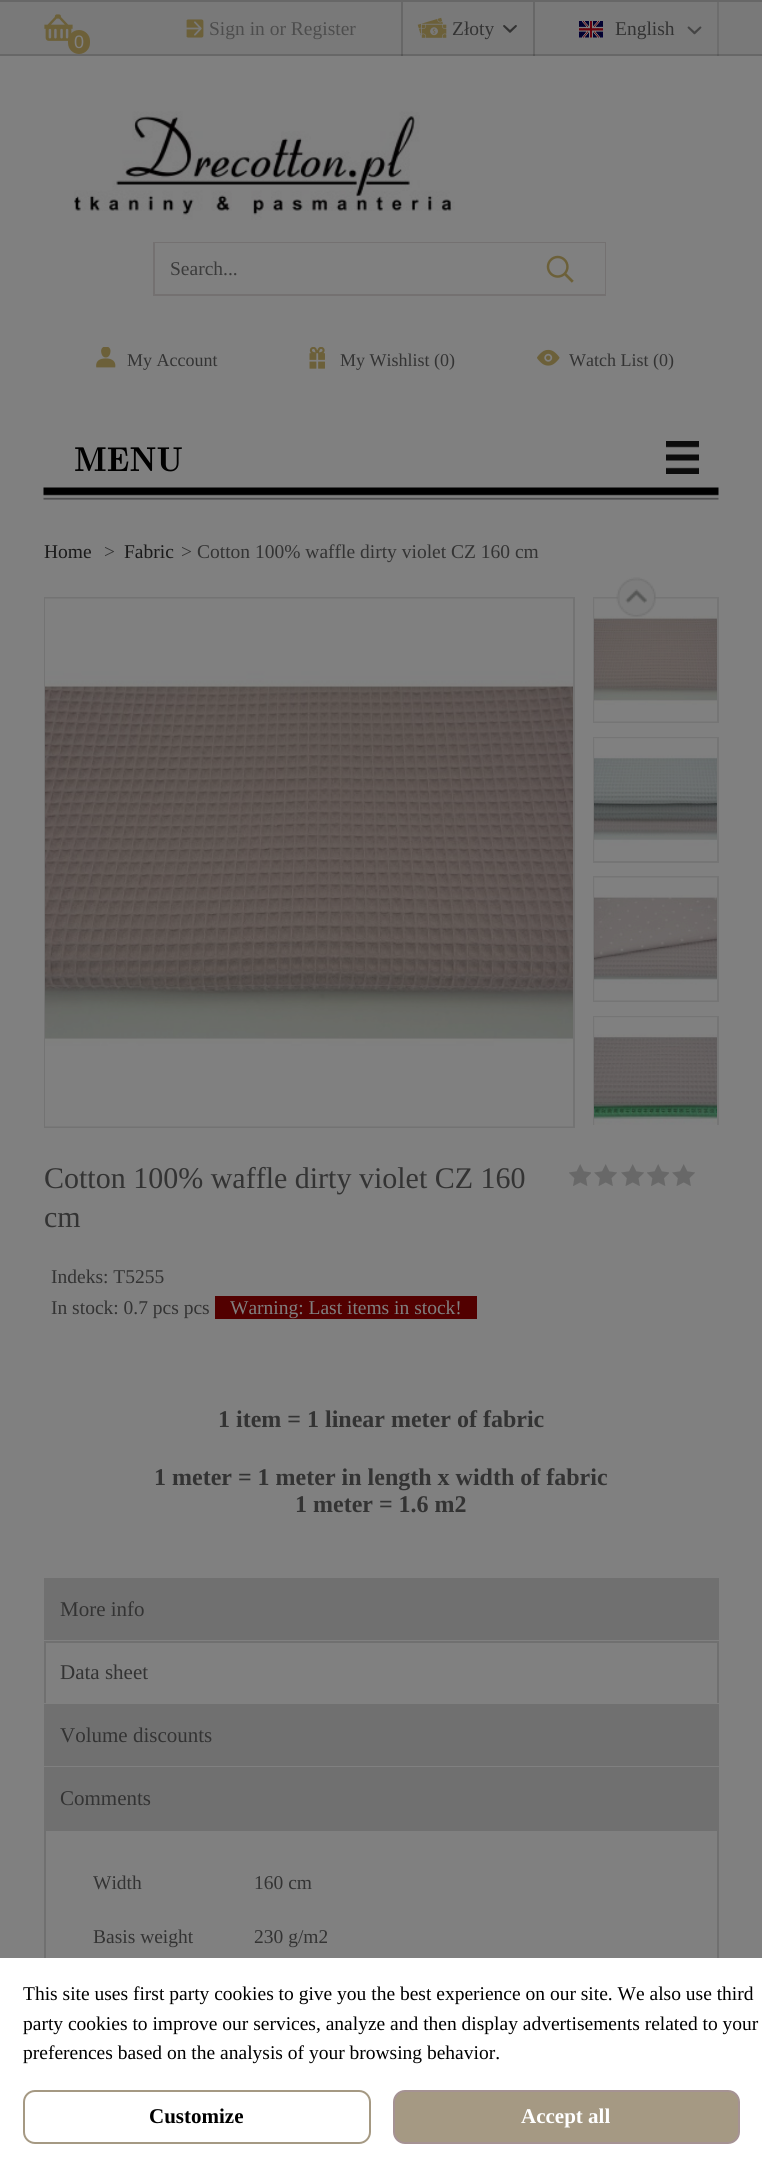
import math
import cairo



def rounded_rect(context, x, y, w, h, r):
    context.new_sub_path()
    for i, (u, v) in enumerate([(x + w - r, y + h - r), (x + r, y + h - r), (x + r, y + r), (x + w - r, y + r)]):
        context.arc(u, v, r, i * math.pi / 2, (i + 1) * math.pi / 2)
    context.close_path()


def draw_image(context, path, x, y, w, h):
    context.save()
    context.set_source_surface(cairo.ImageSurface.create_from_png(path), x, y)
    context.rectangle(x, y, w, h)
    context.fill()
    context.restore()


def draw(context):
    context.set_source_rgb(121 / 255, 121 / 255, 121 / 255)
    context.paint()
    context.set_source_rgb(103 / 255, 103 / 255, 103 / 255)
    context.rectangle(401, 2, 2, 54)
    context.fill()
    context.rectangle(533, 2, 2, 54)
    context.fill()
    context.set_source_rgb(109 / 255, 109 / 255, 109 / 255)
    context.rectangle(717, 2, 2, 54)
    context.fill()
    context.set_source_rgb(103 / 255, 103 / 255, 103 / 255)
    context.rectangle(0, 0, 762, 2)
    context.fill()
    context.set_source_rgb(128 / 255, 128 / 255, 128 / 255)
    context.rectangle(0, 56, 762, 1902)
    context.fill()
    draw_image(context, "images/1.png", 186, 19, 18, 19)
    draw_image(context, "images/2.png", 417, 17, 30, 21)
    draw_image(context, "images/3.png", 503, 25, 14, 8)
    draw_image(context, "images/4.png", 579, 21, 24, 17)
    draw_image(context, "images/5.png", 687, 26, 15, 9)
    draw_image(context, "images/6.png", 44, 14, 29, 27)
    context.set_source_rgb(109 / 255, 96 / 255, 57 / 255)
    rounded_rect(context, 68, 30, 22, 24, 11)
    context.fill()
    draw_image(context, "images/7.png", 74, 111, 381, 109)
    context.rectangle(154, 243, 451, 52)
    context.set_source_rgb(116 / 255, 113 / 255, 113 / 255)
    context.stroke()
    context.set_source_rgb(128 / 255, 128 / 255, 128 / 255)
    context.rectangle(155, 243, 450, 51)
    context.fill()
    draw_image(context, "images/8.png", 546, 255, 28, 28)
    draw_image(context, "images/9.png", 96, 347, 20, 21)
    draw_image(context, "images/10.png", 309, 347, 16, 22)
    draw_image(context, "images/11.png", 537, 349, 23, 17)
    draw_image(context, "images/12.png", 43, 487, 676, 13)
    draw_image(context, "images/13.png", 666, 441, 33, 33)
    context.rectangle(45, 598, 529, 529)
    context.set_source_rgb(115 / 255, 115 / 255, 115 / 255)
    context.stroke()
    draw_image(context, "images/14.png", 45, 598, 528, 529)
    context.rectangle(594, 598, 124, 124)
    context.set_source_rgb(117 / 255, 117 / 255, 117 / 255)
    context.stroke()
    draw_image(context, "images/16.png", 594, 598, 123, 124)
    draw_image(context, "images/15.png", 616, 577, 40, 40)
    context.rectangle(594, 738, 124, 124)
    context.stroke()
    draw_image(context, "images/17.png", 594, 738, 123, 123)
    context.rectangle(594, 877, 124, 124)
    context.stroke()
    draw_image(context, "images/18.png", 594, 877, 123, 124)
    context.save()
    context.rectangle(593, 597, 126, 528)
    context.clip()
    context.rectangle(594, 1017, 124, 124)
    context.stroke()
    context.restore()
    draw_image(context, "images/19.png", 594, 1017, 123, 108)
    draw_image(context, "images/20.png", 569, 1164, 22, 22)
    draw_image(context, "images/21.png", 594, 1164, 23, 22)
    draw_image(context, "images/21.png", 621, 1164, 23, 22)
    draw_image(context, "images/20.png", 647, 1164, 22, 22)
    draw_image(context, "images/21.png", 672, 1164, 23, 22)
    context.set_source_rgb(82 / 255, 0, 0)
    context.rectangle(215, 1296, 262, 23)
    context.fill()
    context.set_source_rgb(112 / 255, 112 / 255, 112 / 255)
    context.rectangle(44, 1578, 675, 62)
    context.fill()
    context.rectangle(44, 1641, 675, 2)
    context.fill()
    context.rectangle(717, 1641, 2, 62)
    context.fill()
    context.rectangle(44, 1641, 2, 62)
    context.fill()
    context.rectangle(44, 1704, 675, 62)
    context.fill()
    context.rectangle(44, 1767, 675, 62)
    context.fill()
    context.rectangle(45, 1830, 673, 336)
    context.stroke()
    context.set_source_rgb(1, 1, 1)
    context.rectangle(0, 1958, 762, 207)
    context.fill()
    rounded_rect(context, 24, 2091, 346, 52, 11)
    context.set_source_rgb(165 / 255, 153 / 255, 131 / 255)
    context.stroke()
    rounded_rect(context, 394, 2091, 345, 52, 11)
    context.fill_preserve()
    context.set_source_rgb(165 / 255, 146 / 255, 147 / 255)
    context.stroke()
    context.set_source_rgb(103 / 255, 103 / 255, 103 / 255)
    context.rectangle(0, 54, 762, 2)
    context.fill()
    context.set_source_rgb(87 / 255, 87 / 255, 87 / 255)
    context.rectangle(401, 54, 2, 2)
    context.fill()
    context.rectangle(533, 54, 2, 2)
    context.fill()
    context.set_source_rgb(93 / 255, 93 / 255, 93 / 255)
    context.rectangle(717, 54, 2, 2)
    context.fill()
    context.select_font_face("Liberation Serif")
    context.set_font_size(19.5)
    context.set_source_rgb(77 / 255, 77 / 255, 77 / 255)
    context.move_to(209, 35)
    context.show_text("Sign in or Register")
    context.set_source_rgb(51 / 255, 51 / 255, 51 / 255)
    context.move_to(452, 35)
    context.show_text("Złoty")
    context.move_to(615, 35)
    context.show_text("English")
    context.select_font_face("Liberation Sans")
    context.set_font_size(18)
    context.set_source_rgb(128 / 255, 128 / 255, 128 / 255)
    context.move_to(74, 48)
    context.show_text("0")
    context.select_font_face("Liberation Serif")
    context.set_font_size(19.5)
    context.set_source_rgb(59 / 255, 59 / 255, 59 / 255)
    context.move_to(170, 275)
    context.show_text("Search...")
    context.set_font_size(18)
    context.set_source_rgb(51 / 255, 51 / 255, 51 / 255)
    context.move_to(127, 366)
    context.show_text("My Account")
    context.move_to(340, 366)
    context.show_text("My Wishlist (0)")
    context.move_to(569, 366)
    context.show_text("Watch List (0)")
    context.select_font_face("Latin Modern Roman Demi")
    context.set_font_size(34.5)
    context.set_source_rgb(0, 0, 0)
    context.move_to(74, 471)
    context.show_text("MENU")
    context.select_font_face("Liberation Serif")
    context.set_font_size(19.5)
    context.set_source_rgb(26 / 255, 26 / 255, 26 / 255)
    context.move_to(44, 558)
    context.show_text("Home")
    context.set_source_rgb(51 / 255, 51 / 255, 51 / 255)
    context.move_to(104, 558)
    context.show_text(">")
    context.set_source_rgb(26 / 255, 26 / 255, 26 / 255)
    context.move_to(124, 558)
    context.show_text("Fabric")
    context.set_source_rgb(51 / 255, 51 / 255, 51 / 255)
    context.move_to(181, 558)
    context.show_text(">")
    context.move_to(197, 558)
    context.show_text("Cotton 100% waffle dirty violet CZ 160 cm")
    context.set_font_size(30)
    context.move_to(44, 1188)
    context.show_text("Cotton 100% waffle dirty violet CZ 160")
    context.move_to(44, 1227)
    context.show_text("cm")
    context.set_font_size(19.5)
    context.move_to(51, 1283)
    context.show_text("Indeks: T5255")
    context.move_to(51, 1314)
    context.show_text("In stock: 0.7 pcs pcs")
    context.set_source_rgb(128 / 255, 128 / 255, 128 / 255)
    context.move_to(230, 1314)
    context.show_text("Warning: Last items in stock!")
    context.select_font_face("Liberation Serif", cairo.FontSlant.NORMAL, cairo.FontWeight.BOLD)
    context.set_font_size(24)
    context.set_source_rgb(51 / 255, 51 / 255, 51 / 255)
    context.move_to(218, 1427)
    context.show_text("1 item = 1 linear meter of fabric")
    context.move_to(154, 1485)
    context.show_text("1 meter = 1 meter in length x width of fabric")
    context.move_to(295, 1512)
    context.show_text("1 meter = 1.6 m2")
    context.select_font_face("Liberation Serif")
    context.set_font_size(21)
    context.move_to(60, 1616)
    context.show_text("More info")
    context.move_to(60, 1679)
    context.show_text("Data sheet")
    context.move_to(60, 1742)
    context.show_text("Volume discounts")
    context.move_to(60, 1805)
    context.show_text("Comments")
    context.set_font_size(19.5)
    context.move_to(93, 1889)
    context.show_text("Width")
    context.move_to(254, 1889)
    context.show_text("160 cm")
    context.move_to(93, 1943)
    context.show_text("Basis weight")
    context.move_to(254, 1943)
    context.show_text("230 g/m2")
    context.set_source_rgb(0, 0, 0)
    context.move_to(23, 2000)
    context.show_text("This site uses first party cookies to give you the best experience on our site. We also use third")
    context.move_to(23, 2030)
    context.show_text("party cookies to improve our services, analyze and then display advertisements related to your")
    context.move_to(23, 2059)
    context.show_text("preferences based on the analysis of your browsing behavior.")
    context.select_font_face("Liberation Serif", cairo.FontSlant.NORMAL, cairo.FontWeight.BOLD)
    context.set_font_size(21)
    context.move_to(149, 2123)
    context.show_text("Customize")
    context.set_source_rgb(1, 1, 1)
    context.move_to(521, 2123)
    context.show_text("Accept all")


surface = cairo.ImageSurface(cairo.Format.RGB24, 762, 2165)
context = cairo.Context(surface)
options = cairo.FontOptions()
options.set_hint_metrics(cairo.HintMetrics.OFF)
options.set_hint_style(cairo.HintStyle.NONE)
context.set_font_options(options)
context.set_miter_limit(4)
draw(context)
surface.write_to_png("out.png")
